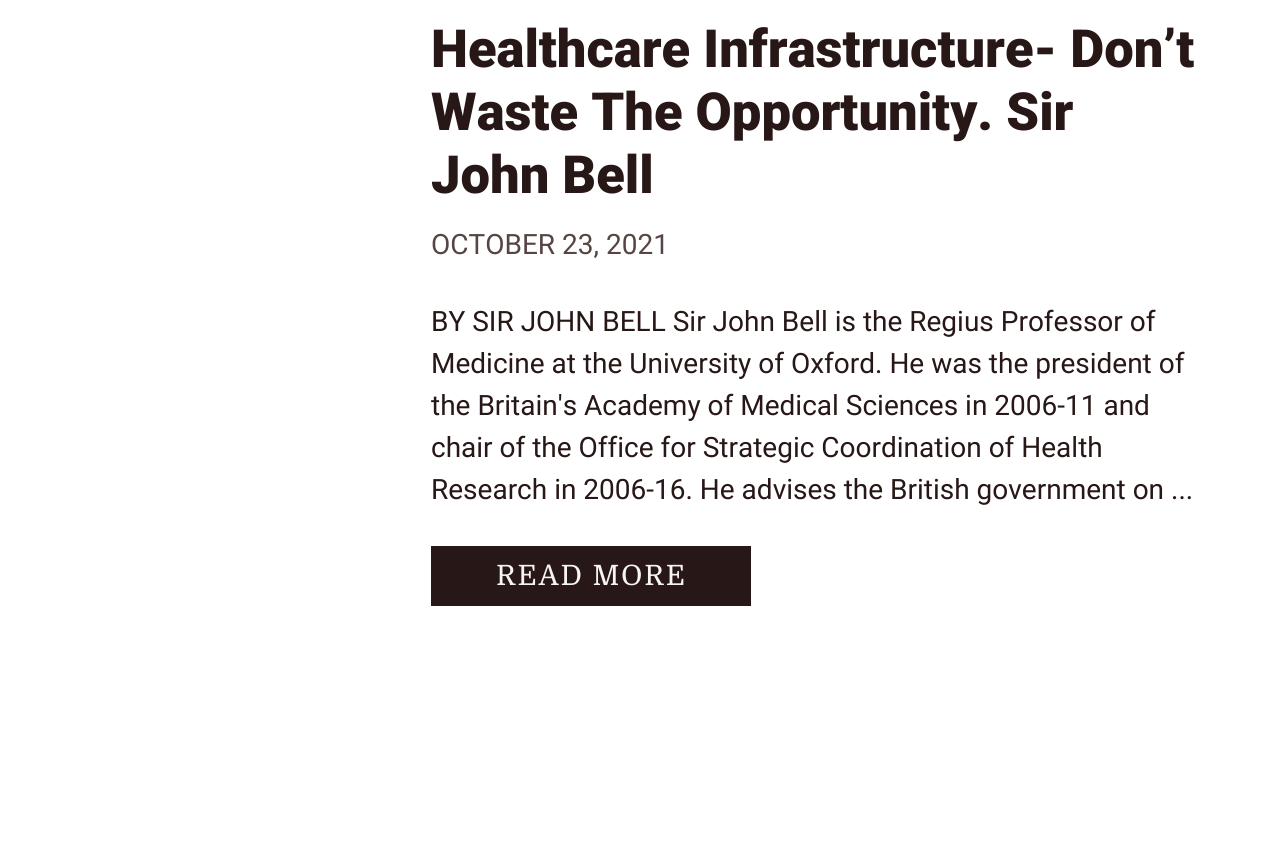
import math
import cairo



def draw_spaced(context, x, y, s, letter, word):
    context.move_to(x, y)
    for ch in s:
        context.show_text(ch)
        context.rel_move_to(letter + word * (ch == ' '), 0)


def draw(context):
    context.set_source_rgb(1, 1, 1)
    context.paint()
    context.set_source_rgb(39 / 255, 23 / 255, 22 / 255)
    context.rectangle(431, 546, 320, 60)
    context.fill()
    context.select_font_face("Roboto Black")
    context.set_font_size(52.5)
    context.move_to(431, 67)
    context.show_text("Healthcare Infrastructure- Don’t")
    context.move_to(431, 130)
    context.show_text("Waste The Opportunity. Sir")
    context.move_to(431, 193)
    context.show_text("John Bell")
    context.select_font_face("Roboto")
    context.set_font_size(28)
    context.set_source_rgb(87 / 255, 69 / 255, 67 / 255)
    context.move_to(431, 254)
    context.show_text("OCTOBER 23, 2021")
    context.set_source_rgb(39 / 255, 23 / 255, 22 / 255)
    context.move_to(431, 331)
    context.show_text("BY SIR JOHN BELL Sir John Bell is the Regius Professor of")
    context.move_to(431, 373)
    context.show_text("Medicine at the University of Oxford. He was the president of")
    context.move_to(431, 415)
    context.show_text("the Britain's Academy of Medical Sciences in 2006-11 and")
    context.move_to(431, 457)
    context.show_text("chair of the Office for Strategic Coordination of Health")
    context.move_to(431, 499)
    context.show_text("Research in 2006-16. He advises the British government on ...")
    context.select_font_face("Domine")
    context.set_source_rgb(246 / 255, 245 / 255, 244 / 255)
    draw_spaced(context, 496, 585, "READ MORE", 1.75, 0)


surface = cairo.ImageSurface(cairo.Format.RGB24, 1270, 848)
context = cairo.Context(surface)
options = cairo.FontOptions()
options.set_hint_metrics(cairo.HintMetrics.OFF)
options.set_hint_style(cairo.HintStyle.NONE)
context.set_font_options(options)
context.set_miter_limit(4)
draw(context)
surface.write_to_png("out.png")
